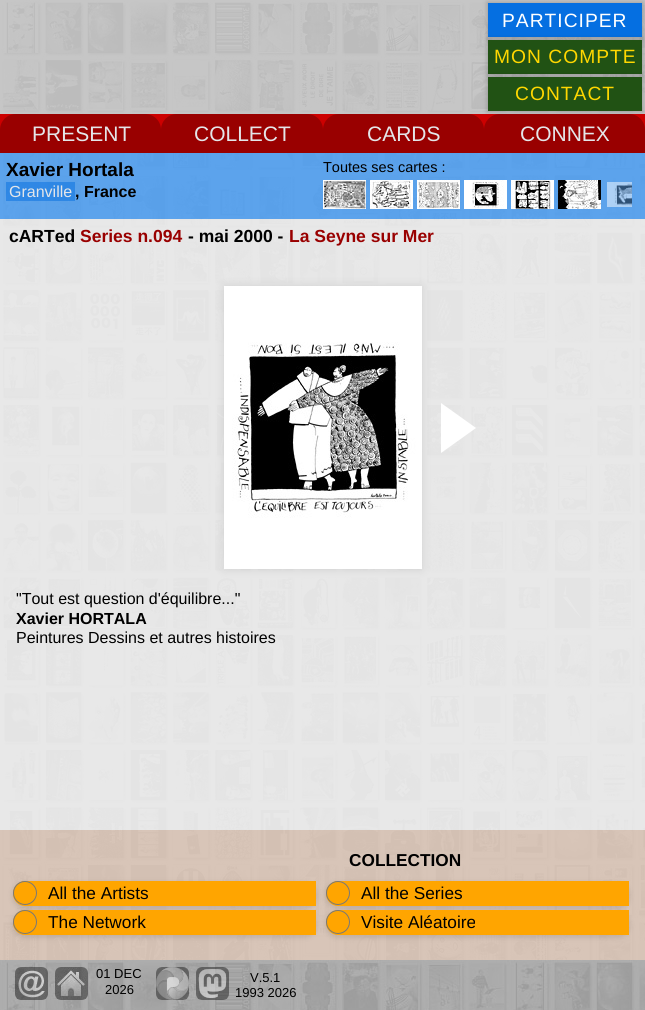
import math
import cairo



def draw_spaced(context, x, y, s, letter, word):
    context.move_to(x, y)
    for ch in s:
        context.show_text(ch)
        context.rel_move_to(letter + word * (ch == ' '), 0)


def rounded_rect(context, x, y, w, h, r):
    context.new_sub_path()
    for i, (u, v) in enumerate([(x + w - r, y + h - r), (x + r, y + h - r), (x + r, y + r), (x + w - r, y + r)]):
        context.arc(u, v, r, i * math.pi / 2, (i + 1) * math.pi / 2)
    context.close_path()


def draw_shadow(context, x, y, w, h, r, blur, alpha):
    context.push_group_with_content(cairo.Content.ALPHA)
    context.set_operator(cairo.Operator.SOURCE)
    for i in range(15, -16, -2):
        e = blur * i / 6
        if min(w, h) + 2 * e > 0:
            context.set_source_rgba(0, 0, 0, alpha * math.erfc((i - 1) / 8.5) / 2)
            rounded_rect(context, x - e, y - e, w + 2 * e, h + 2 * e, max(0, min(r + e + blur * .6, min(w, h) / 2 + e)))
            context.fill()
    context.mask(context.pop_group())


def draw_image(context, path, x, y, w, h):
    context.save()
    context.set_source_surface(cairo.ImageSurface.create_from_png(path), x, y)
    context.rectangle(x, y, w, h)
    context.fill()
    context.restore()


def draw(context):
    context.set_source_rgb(1, 1, 1)
    context.paint()
    draw_image(context, "images/1.png", 0, 0, 645, 960)
    context.set_source_rgb(0, 0, 0)
    draw_shadow(context, 487, 2, 156, 36, 0, 2.5, 0.2)
    context.set_source_rgb(5 / 255, 111 / 255, 225 / 255)
    context.rectangle(488, 3, 154, 34)
    context.fill()
    context.set_source_rgb(0, 0, 0)
    draw_shadow(context, 487, 39, 156, 36, 0, 2.5, 0.2)
    context.set_source_rgb(33 / 255, 82 / 255, 20 / 255)
    context.rectangle(488, 40, 154, 34)
    context.fill()
    context.set_source_rgb(0, 0, 0)
    draw_shadow(context, 487, 76, 156, 36, 0, 2.5, 0.2)
    context.set_source_rgb(33 / 255, 82 / 255, 20 / 255)
    context.rectangle(488, 77, 154, 34)
    context.fill()
    context.set_source_rgb(204 / 255, 0, 0)
    context.rectangle(0, 114, 645, 16)
    context.fill()
    context.set_source_rgb(153 / 255, 0, 0)
    context.new_path()
    context.move_to(16, 114)
    context.line_to(145, 114)
    context.curve_to(154, 114, 161, 121, 161, 130)
    context.line_to(161, 153)
    context.line_to(0, 153)
    context.line_to(0, 130)
    context.curve_to(0, 121, 7, 114, 16, 114)
    context.close_path()
    context.fill()
    context.new_path()
    context.move_to(177, 114)
    context.line_to(307, 114)
    context.curve_to(316, 114, 323, 121, 323, 130)
    context.line_to(323, 153)
    context.line_to(161, 153)
    context.line_to(161, 130)
    context.curve_to(161, 121, 168, 114, 177, 114)
    context.close_path()
    context.fill()
    context.new_path()
    context.move_to(339, 114)
    context.line_to(468, 114)
    context.curve_to(477, 114, 484, 121, 484, 130)
    context.line_to(484, 153)
    context.line_to(323, 153)
    context.line_to(323, 130)
    context.curve_to(323, 121, 330, 114, 339, 114)
    context.close_path()
    context.fill()
    context.new_path()
    context.move_to(500, 114)
    context.line_to(629, 114)
    context.curve_to(638, 114, 645, 121, 645, 130)
    context.line_to(645, 153)
    context.line_to(484, 153)
    context.line_to(484, 130)
    context.curve_to(484, 121, 491, 114, 500, 114)
    context.close_path()
    context.fill()
    context.set_source_rgba(48 / 255, 148 / 255, 253 / 255, 0.7)
    context.rectangle(0, 153, 645, 66)
    context.fill()
    context.set_source_rgba(5 / 255, 111 / 255, 225 / 255, 0.5)
    context.rectangle(6, 182, 69, 19)
    context.fill()
    draw_image(context, "images/2.png", 323, 180, 43, 29)
    draw_image(context, "images/3.png", 370, 180, 43, 29)
    draw_image(context, "images/4.png", 417, 180, 43, 29)
    draw_image(context, "images/5.png", 464, 180, 43, 29)
    draw_image(context, "images/6.png", 511, 180, 43, 29)
    draw_image(context, "images/7.png", 558, 180, 43, 29)
    draw_image(context, "images/8.png", 607, 182, 25, 25)
    context.set_source_rgba(1, 1, 1, 0.6)
    context.rectangle(0, 219, 645, 611)
    context.fill()
    context.set_source_rgb(0, 0, 0)
    draw_shadow(context, 224, 286, 198, 283, 0, 5, 0.1)
    draw_image(context, "images/9.png", 224, 286, 198, 283)
    context.set_source_rgb(1, 1, 1)
    context.new_path()
    context.move_to(441, 453)
    context.line_to(441, 403)
    context.line_to(476, 428)
    context.close_path()
    context.fill()
    context.set_source_rgba(235 / 255, 196 / 255, 170 / 255, 0.5)
    context.rectangle(0, 830, 645, 130)
    context.fill()
    context.set_source_rgb(0, 0, 0)
    draw_shadow(context, 12, 882, 305, 27, 13, 2.5, 0.1)
    context.set_source_rgb(1, 165 / 255, 0)
    context.new_path()
    context.move_to(25, 881)
    context.line_to(316, 881)
    context.line_to(316, 906)
    context.line_to(25, 906)
    context.curve_to(18.5, 906, 13, 900.5, 13, 894)
    context.line_to(13, 893)
    context.curve_to(13, 886.5, 18.5, 881, 25, 881)
    context.close_path()
    context.fill()
    context.set_source_rgba(1, 165 / 255, 0, 0.8)
    context.arc(25, 893, 11.5, 0, 2 * math.pi)
    context.fill_preserve()
    context.set_source_rgb(120 / 255, 120 / 255, 120 / 255)
    context.set_line_width(1)
    context.stroke()
    context.set_source_rgb(0, 0, 0)
    draw_shadow(context, 325, 882, 305, 27, 13, 2.5, 0.1)
    context.set_source_rgb(1, 165 / 255, 0)
    context.new_path()
    context.move_to(338, 881)
    context.line_to(629, 881)
    context.line_to(629, 906)
    context.line_to(338, 906)
    context.curve_to(331.5, 906, 326, 900.5, 326, 894)
    context.line_to(326, 893)
    context.curve_to(326, 886.5, 331.5, 881, 338, 881)
    context.close_path()
    context.fill()
    context.set_source_rgba(1, 165 / 255, 0, 0.8)
    context.arc(338, 893, 11.5, 0, 2 * math.pi)
    context.fill_preserve()
    context.set_source_rgb(120 / 255, 120 / 255, 120 / 255)
    context.stroke()
    context.set_source_rgb(0, 0, 0)
    draw_shadow(context, 12, 911, 305, 27, 13, 2.5, 0.1)
    context.set_source_rgb(1, 165 / 255, 0)
    context.new_path()
    context.move_to(25, 910)
    context.line_to(316, 910)
    context.line_to(316, 935)
    context.line_to(25, 935)
    context.curve_to(18.5, 935, 13, 929.5, 13, 923)
    context.line_to(13, 922)
    context.curve_to(13, 915.5, 18.5, 910, 25, 910)
    context.close_path()
    context.fill()
    context.set_source_rgba(1, 165 / 255, 0, 0.8)
    context.arc(25, 922, 11.5, 0, 2 * math.pi)
    context.fill_preserve()
    context.set_source_rgb(120 / 255, 120 / 255, 120 / 255)
    context.stroke()
    context.set_source_rgb(0, 0, 0)
    draw_shadow(context, 325, 911, 305, 27, 13, 2.5, 0.1)
    context.set_source_rgb(1, 165 / 255, 0)
    context.new_path()
    context.move_to(338, 910)
    context.line_to(629, 910)
    context.line_to(629, 935)
    context.line_to(338, 935)
    context.curve_to(331.5, 935, 326, 929.5, 326, 923)
    context.line_to(326, 922)
    context.curve_to(326, 915.5, 331.5, 910, 338, 910)
    context.close_path()
    context.fill()
    context.set_source_rgba(1, 165 / 255, 0, 0.8)
    context.arc(338, 922, 11.5, 0, 2 * math.pi)
    context.fill_preserve()
    context.set_source_rgb(120 / 255, 120 / 255, 120 / 255)
    context.stroke()
    draw_image(context, "images/10.png", 0, 960, 645, 50)
    draw_image(context, "images/11.png", 15, 967, 33, 33)
    draw_image(context, "images/12.png", 55, 967, 33, 33)
    draw_image(context, "images/13.png", 156, 967, 33, 33)
    draw_image(context, "images/14.png", 196, 967, 33, 33)
    context.select_font_face("Liberation Sans")
    context.set_font_size(19.25)
    context.set_source_rgb(1, 1, 1)
    draw_spaced(context, 502, 27, "PARTICIPER", 1, 0)
    context.set_source_rgb(1, 215 / 255, 0)
    draw_spaced(context, 494, 63, "MON COMPTE", 1, 0)
    draw_spaced(context, 515, 100, "CONTACT", 1, 0)
    context.set_font_size(21)
    context.set_source_rgb(228 / 255, 230 / 255, 233 / 255)
    context.move_to(32, 141)
    context.show_text("PRESENT")
    context.move_to(194, 141)
    context.show_text("COLLECT")
    context.move_to(367, 141)
    context.show_text("CARDS")
    context.move_to(520, 141)
    context.show_text("CONNEX")
    context.select_font_face("Liberation Sans", cairo.FontSlant.NORMAL, cairo.FontWeight.BOLD)
    context.set_font_size(19)
    context.set_source_rgb(0, 0, 0)
    context.move_to(6, 176)
    context.show_text("Xavier Hortala")
    context.select_font_face("Liberation Sans")
    context.set_font_size(16)
    context.set_source_rgb(228 / 255, 230 / 255, 233 / 255)
    context.move_to(9, 197)
    context.show_text("Granville")
    context.select_font_face("Liberation Sans", cairo.FontSlant.NORMAL, cairo.FontWeight.BOLD)
    context.set_source_rgb(0, 0, 0)
    context.move_to(75, 197)
    context.show_text(", France")
    context.select_font_face("Liberation Sans")
    context.set_font_size(14.5)
    context.move_to(323, 172)
    context.show_text("Toutes ses cartes :")
    context.select_font_face("Liberation Sans", cairo.FontSlant.NORMAL, cairo.FontWeight.BOLD)
    context.set_font_size(17.5)
    context.move_to(9, 242)
    context.show_text("cARTed")
    context.set_source_rgb(153 / 255, 0, 0)
    context.move_to(80, 242)
    context.show_text("Series n.094")
    context.set_source_rgb(0, 0, 0)
    context.move_to(188, 242)
    context.show_text("- mai 2000 -")
    context.set_source_rgb(153 / 255, 0, 0)
    context.move_to(289, 242)
    context.show_text("La Seyne sur Mer")
    context.select_font_face("Liberation Sans")
    context.set_font_size(16)
    context.set_source_rgb(0, 0, 0)
    context.move_to(16, 604)
    context.show_text("\"Tout est question d'équilibre...\"")
    context.select_font_face("Liberation Sans", cairo.FontSlant.NORMAL, cairo.FontWeight.BOLD)
    context.move_to(16, 624)
    context.show_text("Xavier HORTALA")
    context.select_font_face("Liberation Sans")
    context.move_to(16, 643)
    context.show_text("Peintures Dessins et autres histoires")
    context.select_font_face("Liberation Sans", cairo.FontSlant.NORMAL, cairo.FontWeight.BOLD)
    context.set_font_size(17.25)
    context.move_to(349, 866)
    context.show_text("COLLECTION")
    context.select_font_face("Liberation Sans")
    context.move_to(48, 899)
    context.show_text("All the Artists")
    context.move_to(361, 899)
    context.show_text("All the Series")
    context.move_to(48, 928)
    context.show_text("The Network")
    context.move_to(361, 928)
    context.show_text("Visite Aléatoire")
    context.set_font_size(13)
    context.move_to(96, 978)
    context.show_text("01 DEC")
    context.move_to(105, 994)
    context.show_text("2026")
    context.move_to(250, 982)
    context.show_text("V.5.1")
    context.move_to(235, 997)
    context.show_text("1993 2026")


surface = cairo.ImageSurface(cairo.Format.RGB24, 645, 1010)
context = cairo.Context(surface)
options = cairo.FontOptions()
options.set_hint_metrics(cairo.HintMetrics.OFF)
options.set_hint_style(cairo.HintStyle.NONE)
context.set_font_options(options)
context.set_miter_limit(4)
draw(context)
surface.write_to_png("out.png")
